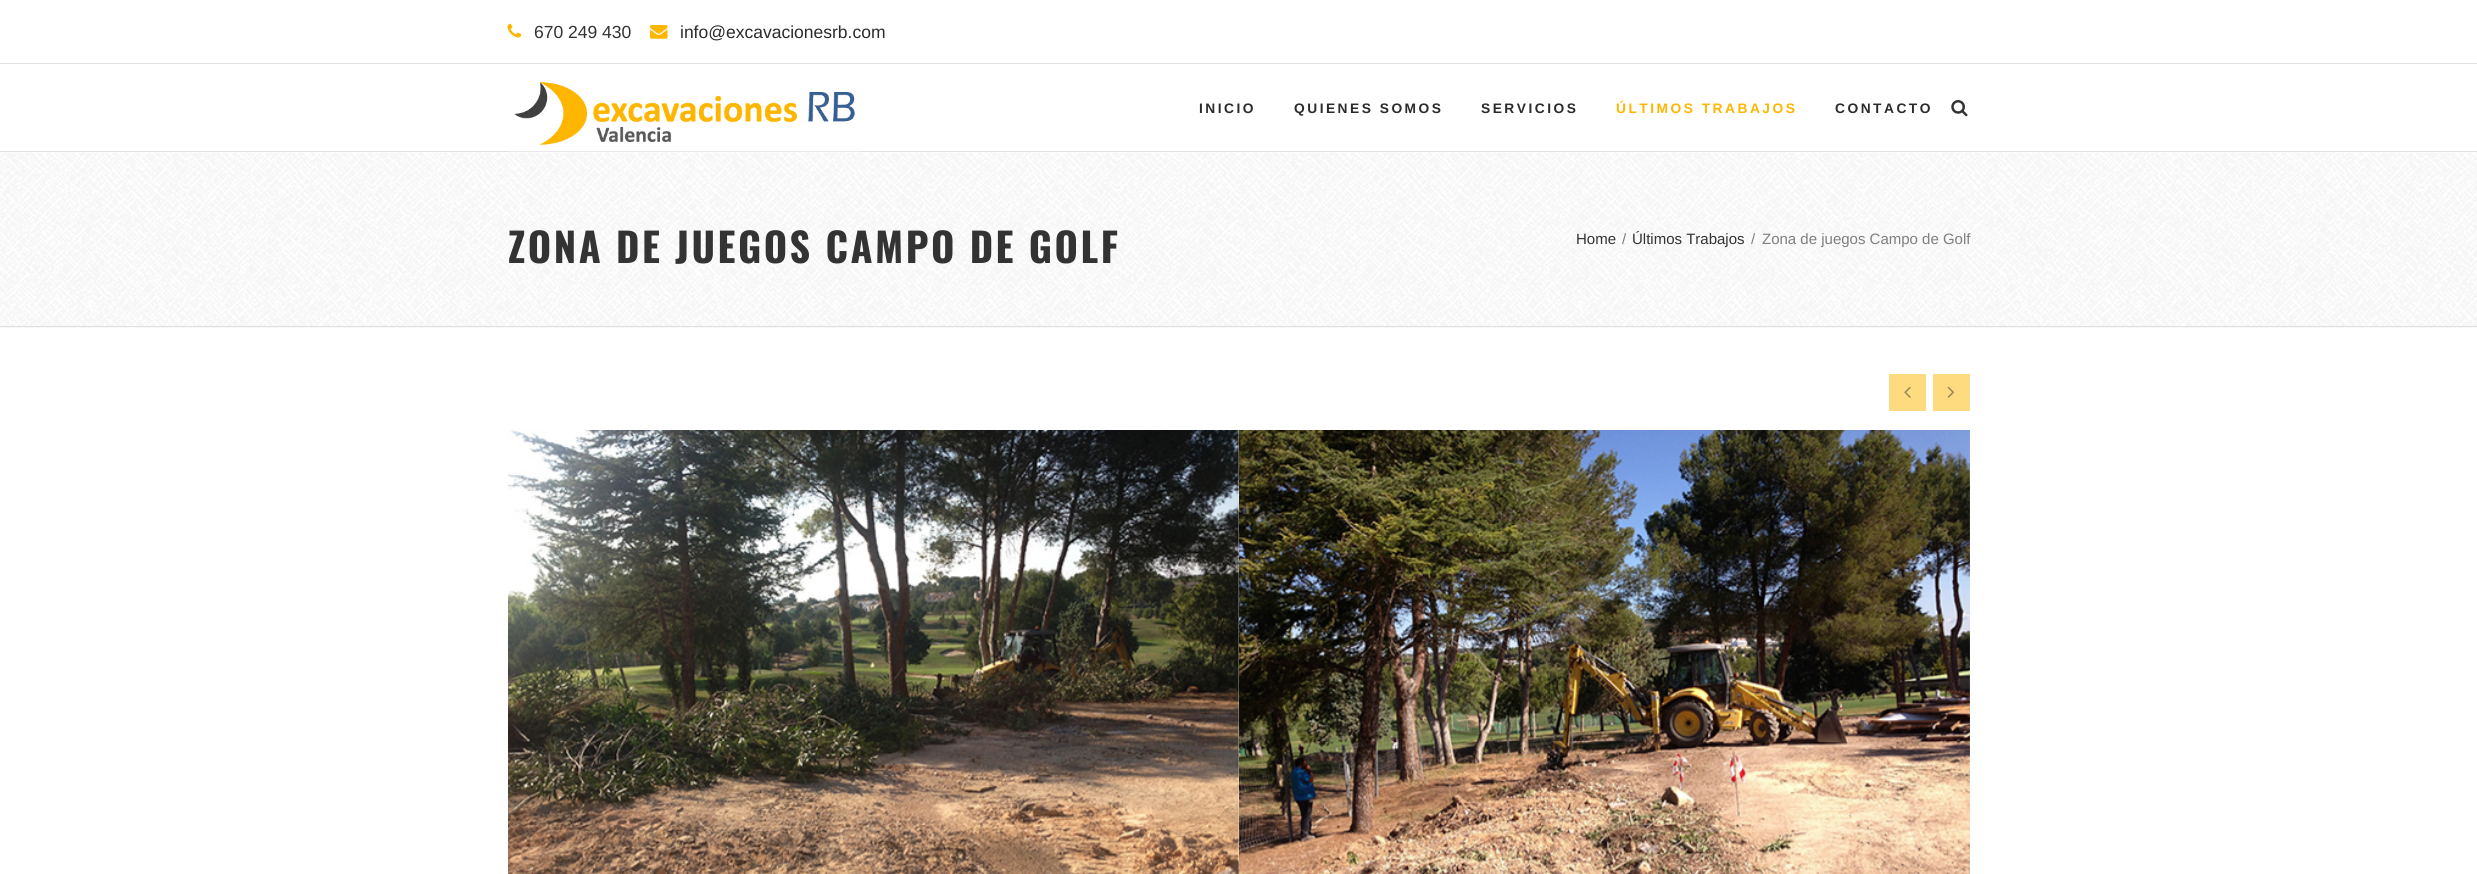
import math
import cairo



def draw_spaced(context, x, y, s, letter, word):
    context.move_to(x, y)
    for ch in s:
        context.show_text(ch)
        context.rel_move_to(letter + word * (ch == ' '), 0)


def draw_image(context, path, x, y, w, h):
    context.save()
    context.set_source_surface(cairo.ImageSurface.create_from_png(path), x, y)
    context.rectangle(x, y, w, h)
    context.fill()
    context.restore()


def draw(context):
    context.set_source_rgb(1, 1, 1)
    context.paint()
    context.set_source_rgb(225 / 255, 225 / 255, 225 / 255)
    context.rectangle(0, 63, 2477, 1)
    context.fill()
    draw_image(context, "images/1.png", 507, 23, 15, 15)
    draw_image(context, "images/2.png", 650, 25, 18, 14)
    context.rectangle(0, 151, 2477, 1)
    context.fill()
    draw_image(context, "images/3.png", 508, 82, 353, 70)
    draw_image(context, "images/4.png", 1951, 100, 17, 17)
    context.set_source_rgb(247 / 255, 247 / 255, 247 / 255)
    context.rectangle(0, 327, 2477, 1)
    context.fill()
    draw_image(context, "images/5.png", 0, 152, 2477, 176)
    context.set_source_rgb(225 / 255, 225 / 255, 225 / 255)
    context.rectangle(0, 326, 2477, 1)
    context.fill()
    context.set_source_rgb(1, 219 / 255, 128 / 255)
    context.rectangle(1889, 374, 37, 37)
    context.fill()
    draw_image(context, "images/6.png", 1904, 386, 7, 12)
    context.rectangle(1933, 374, 37, 37)
    context.fill()
    draw_image(context, "images/7.png", 1947, 386, 8, 12)
    draw_image(context, "images/8.png", 508, 430, 731, 444)
    draw_image(context, "images/9.png", 1239, 430, 731, 444)
    context.select_font_face("Arimo")
    context.set_font_size(17.5)
    context.set_source_rgb(51 / 255, 51 / 255, 51 / 255)
    context.move_to(534, 38)
    context.show_text("670 249 430")
    context.set_source_rgb(43 / 255, 43 / 255, 43 / 255)
    context.move_to(680, 38)
    context.show_text("info@excavacionesrb.com")
    context.select_font_face("Arimo", cairo.FontSlant.NORMAL, cairo.FontWeight.BOLD)
    context.set_font_size(13.75)
    draw_spaced(context, 1199, 113, "INICIO", 2.5, 0)
    draw_spaced(context, 1294, 113, "QUIENES SOMOS", 2.5, 0)
    draw_spaced(context, 1481, 113, "SERVICIOS", 2.5, 0)
    context.set_source_rgb(254 / 255, 182 / 255, 0)
    draw_spaced(context, 1616, 113, "ÚLTIMOS TRABAJOS", 2.5, 0)
    context.set_source_rgb(43 / 255, 43 / 255, 43 / 255)
    draw_spaced(context, 1835, 113, "CONTACTO", 2.5, 0)
    context.select_font_face("Oswald", cairo.FontSlant.NORMAL, cairo.FontWeight.BOLD)
    context.set_font_size(40)
    context.set_source_rgb(51 / 255, 51 / 255, 51 / 255)
    draw_spaced(context, 508, 263, "ZONA DE JUEGOS CAMPO DE GOLF", 2.5, 0)
    context.select_font_face("Arimo")
    context.set_font_size(15)
    context.move_to(1576, 244)
    context.show_text("Home")
    context.set_source_rgb(127 / 255, 127 / 255, 127 / 255)
    context.move_to(1622, 244)
    context.show_text("/")
    context.set_source_rgb(51 / 255, 51 / 255, 51 / 255)
    context.move_to(1632, 244)
    context.show_text("Últimos Trabajos")
    context.set_source_rgb(127 / 255, 127 / 255, 127 / 255)
    context.move_to(1751, 244)
    context.show_text("/")
    context.move_to(1762, 244)
    context.show_text("Zona de juegos Campo de Golf")


surface = cairo.ImageSurface(cairo.Format.RGB24, 2477, 874)
context = cairo.Context(surface)
options = cairo.FontOptions()
options.set_hint_metrics(cairo.HintMetrics.OFF)
options.set_hint_style(cairo.HintStyle.NONE)
context.set_font_options(options)
context.set_miter_limit(4)
draw(context)
surface.write_to_png("out.png")
